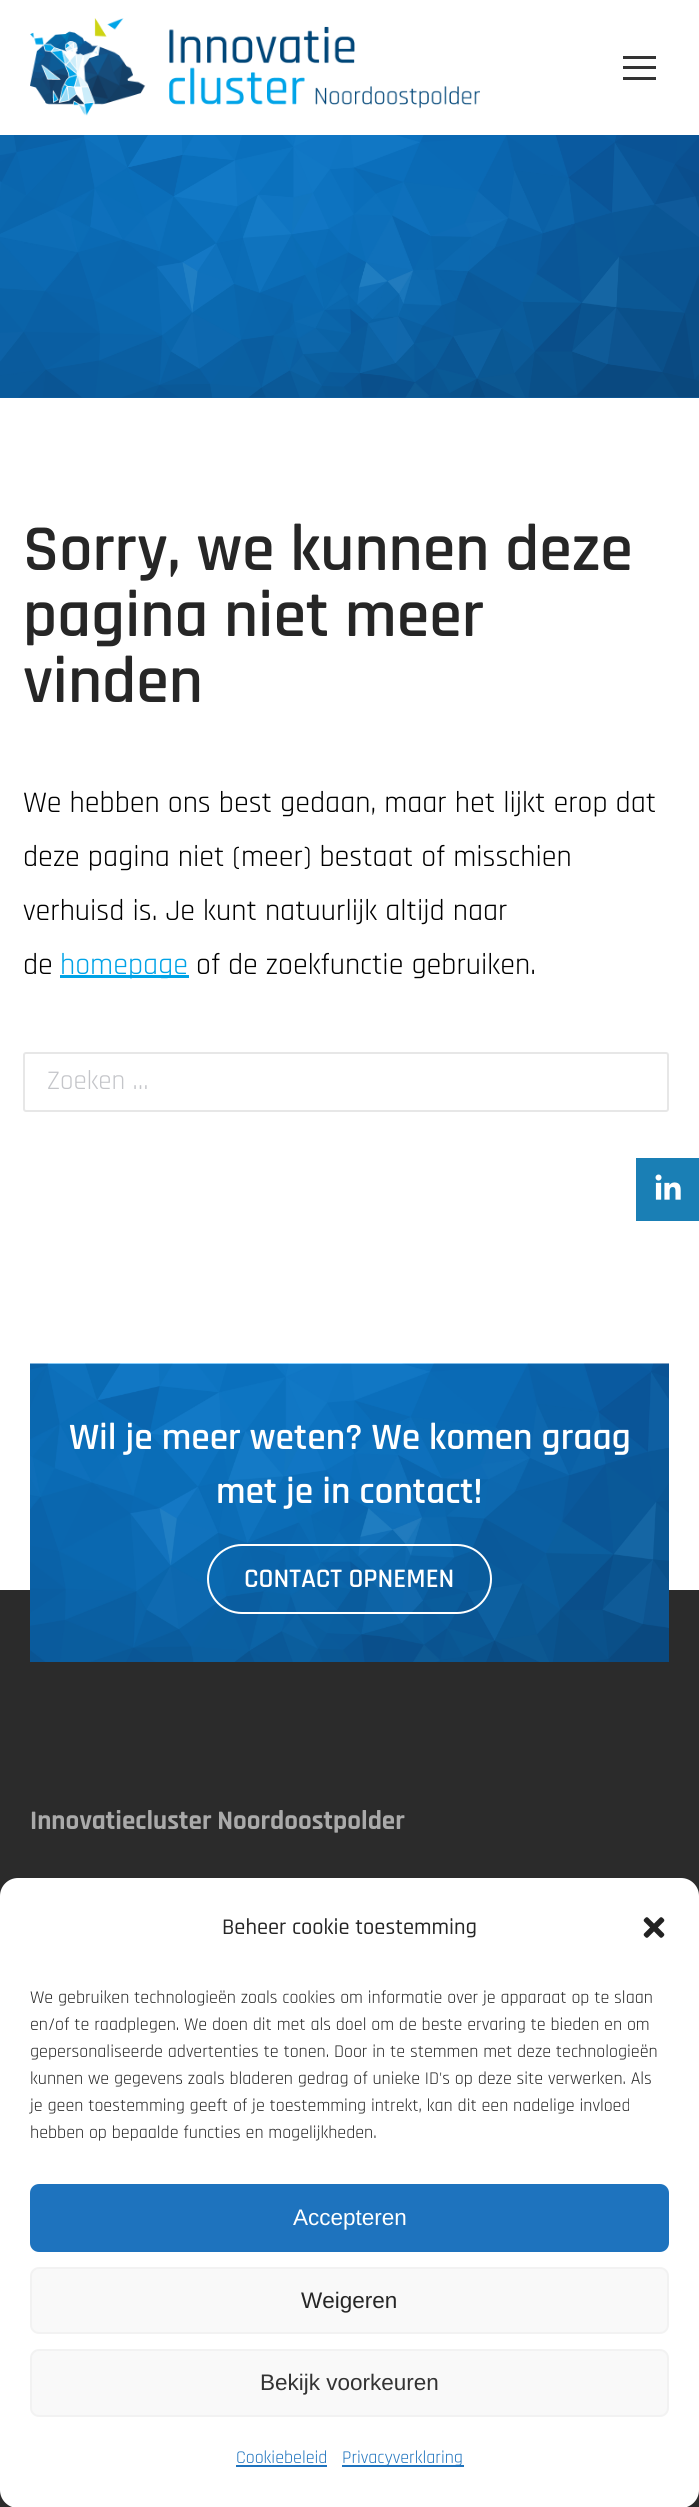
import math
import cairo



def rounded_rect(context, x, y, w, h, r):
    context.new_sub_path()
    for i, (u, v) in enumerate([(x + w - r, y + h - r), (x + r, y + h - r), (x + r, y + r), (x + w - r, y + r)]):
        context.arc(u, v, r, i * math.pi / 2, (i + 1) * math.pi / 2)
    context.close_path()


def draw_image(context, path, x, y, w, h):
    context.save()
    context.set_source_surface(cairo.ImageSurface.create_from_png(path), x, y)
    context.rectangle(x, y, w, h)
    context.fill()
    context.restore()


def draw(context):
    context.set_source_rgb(1, 1, 1)
    context.paint()
    draw_image(context, "images/1.png", 30, 18, 450, 98)
    context.set_source_rgb(51 / 255, 51 / 255, 51 / 255)
    context.rectangle(623, 56, 33, 3)
    context.fill()
    context.rectangle(623, 66, 33, 3)
    context.fill()
    context.rectangle(623, 77, 33, 3)
    context.fill()
    context.set_source_rgb(17 / 255, 94 / 255, 160 / 255)
    context.rectangle(0, 397, 699, 1)
    context.fill()
    draw_image(context, "images/2.png", 0, 135, 699, 263)
    context.set_source_rgb(0, 163 / 255, 231 / 255)
    context.rectangle(60, 975, 129, 3)
    context.fill()
    rounded_rect(context, 24, 1053, 644, 58, 2)
    context.set_source_rgb(231 / 255, 231 / 255, 231 / 255)
    context.stroke()
    context.set_source_rgb(26 / 255, 127 / 255, 181 / 255)
    context.rectangle(636, 1158, 63, 63)
    context.fill()
    draw_image(context, "images/3.png", 655, 1174, 26, 26)
    context.set_source_rgb(43 / 255, 43 / 255, 43 / 255)
    context.rectangle(0, 1590, 699, 917)
    context.fill()
    draw_image(context, "images/4.png", 30, 1363, 639, 299)
    rounded_rect(context, 208, 1545, 283, 68, 34)
    context.set_source_rgb(1, 1, 1)
    context.stroke()
    rounded_rect(context, 0, 1878, 699, 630, 18)
    context.fill()
    draw_image(context, "images/5.png", 643, 1917, 22, 21)
    context.set_source_rgb(30 / 255, 115 / 255, 190 / 255)
    rounded_rect(context, 31, 2185, 637, 66, 8)
    context.fill_preserve()
    context.stroke()
    context.set_source_rgb(249 / 255, 249 / 255, 249 / 255)
    rounded_rect(context, 31, 2268, 637, 65, 8)
    context.fill_preserve()
    context.set_source_rgb(242 / 255, 242 / 255, 242 / 255)
    context.stroke()
    context.set_source_rgb(249 / 255, 249 / 255, 249 / 255)
    rounded_rect(context, 31, 2350, 637, 66, 8)
    context.fill_preserve()
    context.set_source_rgb(242 / 255, 242 / 255, 242 / 255)
    context.stroke()
    context.set_source_rgb(30 / 255, 115 / 255, 190 / 255)
    context.rectangle(236, 2465, 91, 2)
    context.fill()
    context.rectangle(342, 2465, 122, 2)
    context.fill()
    context.select_font_face("Rajdhani SemiBold")
    context.set_font_size(66)
    context.set_source_rgb(38 / 255, 38 / 255, 38 / 255)
    context.move_to(23, 570)
    context.show_text("Sorry, we kunnen deze")
    context.move_to(23, 636)
    context.show_text("pagina niet meer")
    context.move_to(23, 702)
    context.show_text("vinden")
    context.select_font_face("Rajdhani")
    context.set_font_size(30)
    context.set_source_rgb(0, 0, 0)
    context.move_to(23, 812)
    context.show_text("We hebben ons best gedaan, maar het lijkt erop dat")
    context.move_to(23, 866)
    context.show_text("deze pagina niet (meer) bestaat of misschien")
    context.move_to(23, 920)
    context.show_text("verhuisd is. Je kunt natuurlijk altijd naar")
    context.move_to(23, 974)
    context.show_text("de")
    context.set_source_rgb(0, 163 / 255, 231 / 255)
    context.move_to(60, 974)
    context.show_text("homepage")
    context.set_source_rgb(0, 0, 0)
    context.move_to(196, 974)
    context.show_text("of de zoekfunctie gebruiken.")
    context.set_font_size(27)
    context.set_source_rgb(196 / 255, 197 / 255, 201 / 255)
    context.move_to(47, 1089)
    context.show_text("Zoeken …")
    context.select_font_face("Rajdhani SemiBold")
    context.set_font_size(37.5)
    context.set_source_rgb(1, 1, 1)
    context.move_to(69, 1449)
    context.show_text("Wil je meer weten? We komen graag")
    context.move_to(216, 1503)
    context.show_text("met je in contact!")
    context.set_font_size(27)
    context.move_to(244, 1587)
    context.show_text("CONTACT OPNEMEN")
    context.select_font_face("Rajdhani", cairo.FontSlant.NORMAL, cairo.FontWeight.BOLD)
    context.set_source_rgb(170 / 255, 170 / 255, 170 / 255)
    context.move_to(30, 1829)
    context.show_text("Innovatiecluster Noordoostpolder")
    context.select_font_face("Rajdhani Medium")
    context.set_font_size(22.5)
    context.set_source_rgb(38 / 255, 38 / 255, 38 / 255)
    context.move_to(222, 1934)
    context.show_text("Beheer cookie toestemming")
    context.select_font_face("Rajdhani")
    context.set_font_size(18)
    context.move_to(30, 2003)
    context.show_text("We gebruiken technologieën zoals cookies om informatie over je apparaat op te slaan")
    context.move_to(30, 2030)
    context.show_text("en/of te raadplegen. We doen dit met als doel om de beste ervaring te bieden en om")
    context.move_to(30, 2057)
    context.show_text("gepersonaliseerde advertenties te tonen. Door in te stemmen met deze technologieën")
    context.move_to(30, 2084)
    context.show_text("kunnen we gegevens zoals bladeren gedrag of unieke ID's op deze site verwerken. Als")
    context.move_to(30, 2111)
    context.show_text("je geen toestemming geeft of je toestemming intrekt, kan dit een nadelige invloed")
    context.move_to(30, 2138)
    context.show_text("hebben op bepaalde functies en mogelijkheden.")
    context.select_font_face("Liberation Sans")
    context.set_font_size(22.5)
    context.set_source_rgb(1, 1, 1)
    context.move_to(293, 2225)
    context.show_text("Accepteren")
    context.set_source_rgb(38 / 255, 38 / 255, 38 / 255)
    context.move_to(301, 2308)
    context.show_text("Weigeren")
    context.set_source_rgb(51 / 255, 51 / 255, 51 / 255)
    context.move_to(260, 2390)
    context.show_text("Bekijk voorkeuren")
    context.select_font_face("Rajdhani")
    context.set_font_size(18)
    context.set_source_rgb(30 / 255, 115 / 255, 190 / 255)
    context.move_to(236, 2463)
    context.show_text("Cookiebeleid")
    context.move_to(342, 2463)
    context.show_text("Privacyverklaring")


surface = cairo.ImageSurface(cairo.Format.RGB24, 699, 2507)
context = cairo.Context(surface)
options = cairo.FontOptions()
options.set_hint_metrics(cairo.HintMetrics.OFF)
options.set_hint_style(cairo.HintStyle.NONE)
context.set_font_options(options)
context.set_miter_limit(4)
draw(context)
surface.write_to_png("out.png")
